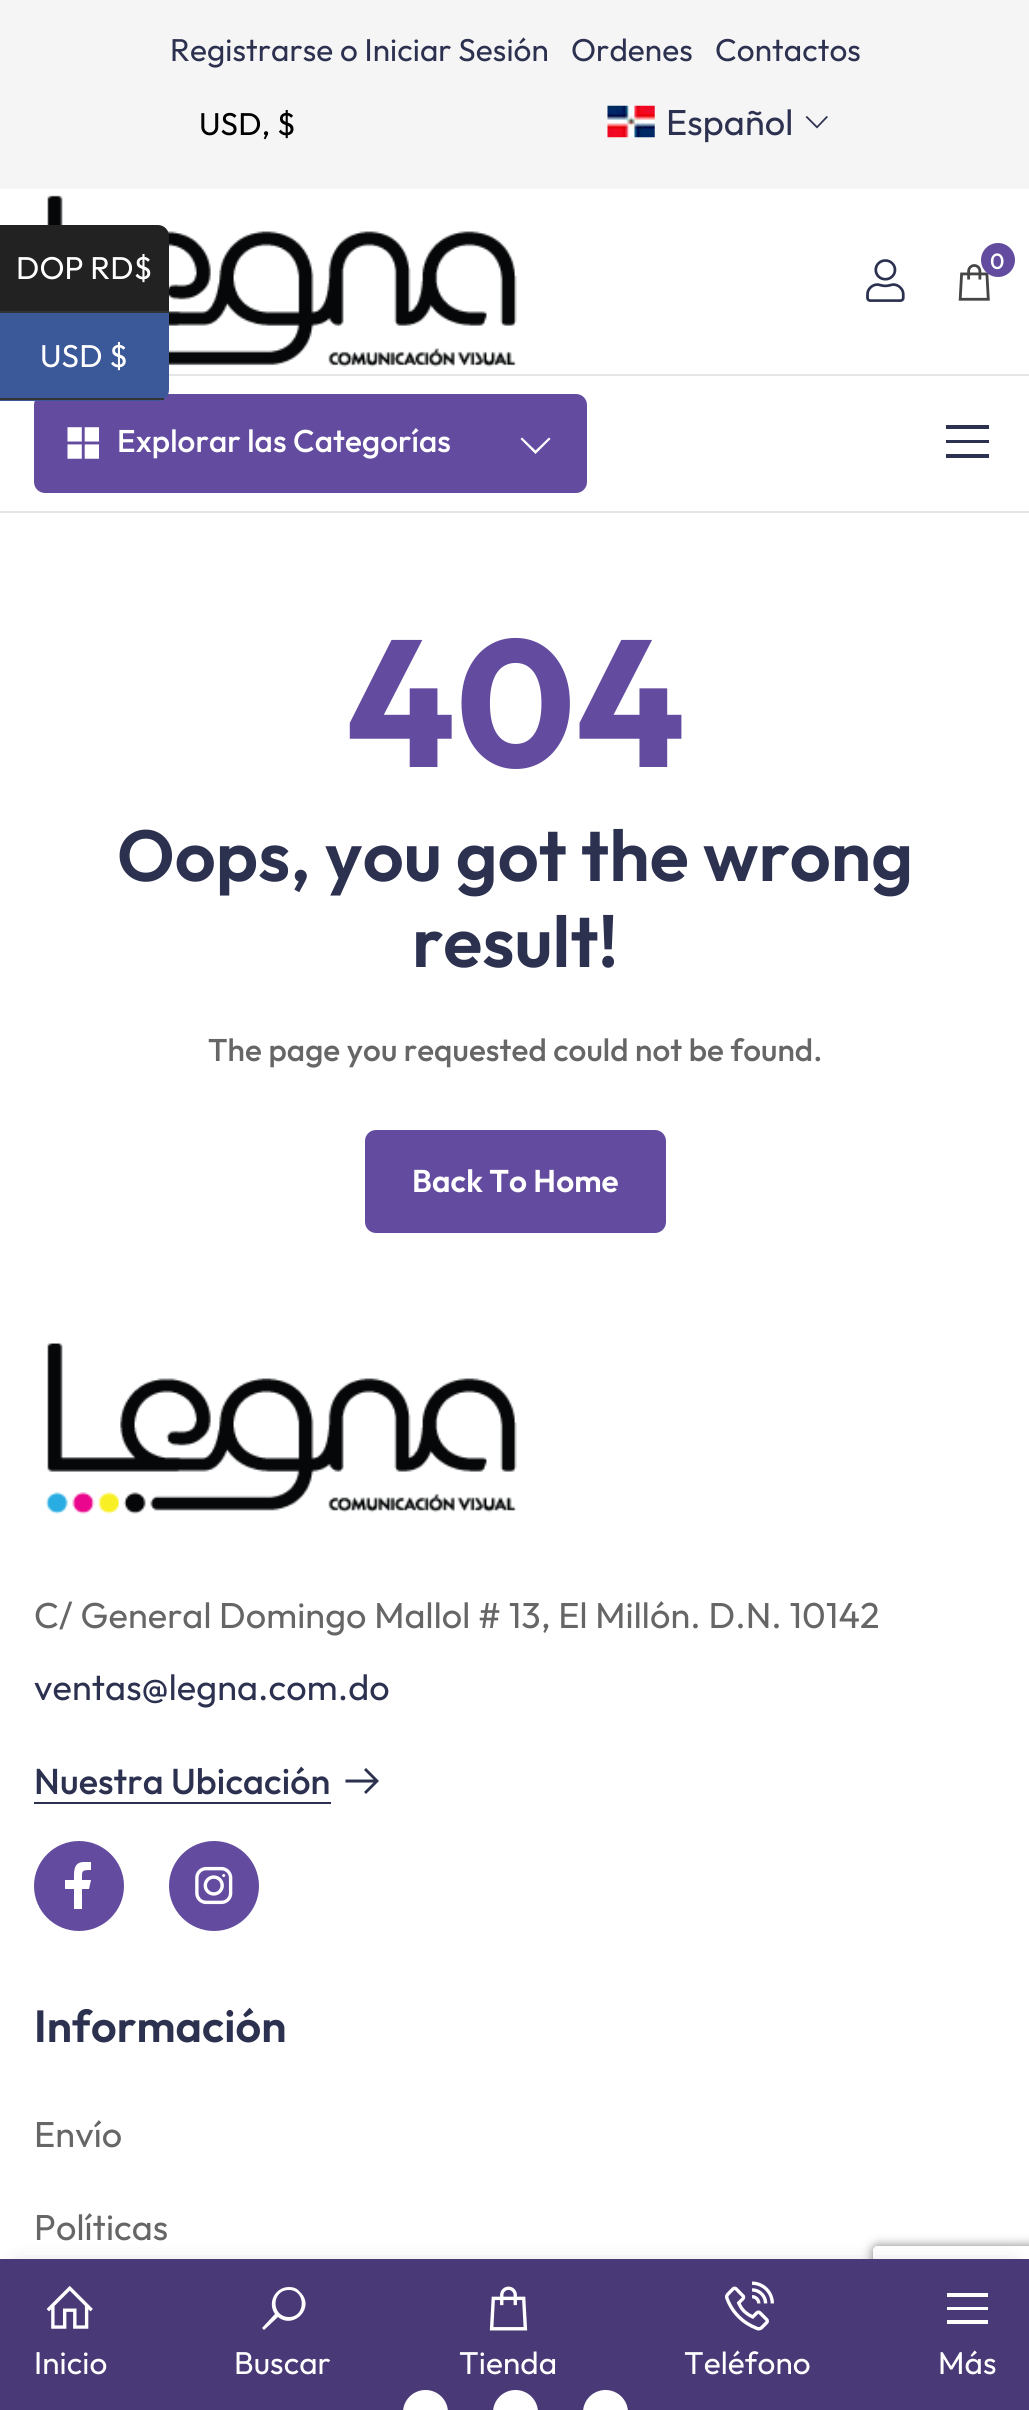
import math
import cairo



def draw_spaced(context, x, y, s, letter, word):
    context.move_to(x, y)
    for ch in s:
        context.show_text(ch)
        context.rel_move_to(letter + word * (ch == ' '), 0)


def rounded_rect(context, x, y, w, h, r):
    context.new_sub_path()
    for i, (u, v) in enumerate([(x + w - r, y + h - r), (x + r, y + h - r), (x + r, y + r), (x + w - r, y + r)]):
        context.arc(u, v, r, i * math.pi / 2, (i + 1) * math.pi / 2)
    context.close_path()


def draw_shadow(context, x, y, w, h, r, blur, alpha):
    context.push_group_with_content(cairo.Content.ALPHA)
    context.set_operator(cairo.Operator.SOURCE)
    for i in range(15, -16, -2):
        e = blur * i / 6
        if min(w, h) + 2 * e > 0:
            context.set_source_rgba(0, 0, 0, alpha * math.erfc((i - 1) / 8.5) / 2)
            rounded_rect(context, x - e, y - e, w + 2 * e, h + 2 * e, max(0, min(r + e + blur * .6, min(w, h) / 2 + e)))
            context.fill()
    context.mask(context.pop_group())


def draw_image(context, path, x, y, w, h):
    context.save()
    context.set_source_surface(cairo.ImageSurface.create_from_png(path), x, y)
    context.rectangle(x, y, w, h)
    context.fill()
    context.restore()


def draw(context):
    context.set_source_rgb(1, 1, 1)
    context.paint()
    context.set_source_rgb(245 / 255, 245 / 255, 245 / 255)
    context.rectangle(0, 0, 1029, 189)
    context.fill()
    draw_image(context, "images/1.png", 607, 105, 48, 33)
    context.set_source_rgb(45 / 255, 49 / 255, 80 / 255)
    context.new_path()
    context.move_to(807, 116)
    context.line_to(805.5, 117)
    context.line_to(817, 128.5)
    context.line_to(828, 117)
    context.line_to(826.5, 116)
    context.line_to(817, 126)
    context.close_path()
    context.fill()
    context.set_source_rgb(229 / 255, 229 / 255, 229 / 255)
    context.rectangle(169, 374, 860, 2)
    context.fill()
    draw_image(context, "images/2.png", 47, 195, 470, 172)
    draw_image(context, "images/3.png", 866, 259, 39, 43)
    draw_image(context, "images/4.png", 958, 264, 32, 37)
    context.set_source_rgb(99 / 255, 76 / 255, 159 / 255)
    context.arc(998, 260, 17, 0, 2 * math.pi)
    context.fill()
    context.set_source_rgb(229 / 255, 229 / 255, 229 / 255)
    context.rectangle(0, 511, 1029, 2)
    context.fill()
    context.set_source_rgb(99 / 255, 76 / 255, 159 / 255)
    rounded_rect(context, 34, 394, 553, 99, 11)
    context.fill()
    draw_image(context, "images/5.png", 67, 427, 32, 32)
    context.set_source_rgb(1, 1, 1)
    context.new_path()
    context.move_to(522, 437.5)
    context.line_to(520.5, 439)
    context.line_to(535.5, 454)
    context.line_to(550.5, 439)
    context.line_to(549, 437.5)
    context.line_to(535.5, 450.5)
    context.close_path()
    context.fill()
    context.set_source_rgb(45 / 255, 49 / 255, 80 / 255)
    context.new_path()
    context.move_to(946, 425)
    context.line_to(946, 429)
    context.line_to(989, 429)
    context.line_to(989, 425)
    context.close_path()
    context.move_to(946, 440)
    context.line_to(946, 443)
    context.line_to(989, 443)
    context.line_to(989, 440)
    context.close_path()
    context.move_to(946, 454)
    context.line_to(946, 458)
    context.line_to(989, 458)
    context.line_to(989, 454)
    context.close_path()
    context.fill()
    context.set_source_rgb(99 / 255, 76 / 255, 159 / 255)
    rounded_rect(context, 366, 1131, 299, 101, 10)
    context.fill_preserve()
    context.stroke()
    draw_image(context, "images/6.png", 45, 1343, 472, 171)
    context.set_source_rgb(45 / 255, 49 / 255, 80 / 255)
    context.rectangle(34, 1802, 297, 2)
    context.fill()
    context.new_path()
    context.move_to(366, 1768)
    context.line_to(364, 1770)
    context.line_to(373.5, 1779.5)
    context.line_to(345.5, 1779.5)
    context.line_to(345.5, 1782.5)
    context.line_to(373.5, 1782.5)
    context.line_to(364, 1792)
    context.line_to(366, 1794)
    context.line_to(379, 1781)
    context.close_path()
    context.fill()
    context.set_source_rgb(99 / 255, 76 / 255, 159 / 255)
    context.arc(79, 1886, 45, 0, 2 * math.pi)
    context.fill()
    context.set_source_rgb(1, 1, 1)
    context.new_path()
    context.move_to(84, 1862)
    context.curve_to(73, 1862, 74, 1872, 74, 1880)
    context.line_to(65, 1880)
    context.line_to(65, 1889)
    context.line_to(74, 1889)
    context.line_to(74, 1909)
    context.line_to(82, 1909)
    context.line_to(82, 1889)
    context.line_to(89, 1889)
    context.line_to(91, 1880)
    context.line_to(82, 1880)
    context.curve_to(82, 1871, 81, 1870, 91, 1870)
    context.line_to(91, 1862)
    context.close_path()
    context.fill()
    context.set_source_rgb(99 / 255, 76 / 255, 159 / 255)
    context.arc(214, 1886, 45, 0, 2 * math.pi)
    context.fill()
    draw_image(context, "images/7.png", 195, 1866, 38, 39)
    context.set_source_rgb(0, 0, 0)
    draw_shadow(context, 18, 2268, 995, 117, 0, 11, 0.25)
    context.save()
    context.set_fill_rule(cairo.FillRule.EVEN_ODD)
    context.new_path()
    context.move_to(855, 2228)
    context.line_to(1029, 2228)
    context.line_to(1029, 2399)
    context.line_to(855, 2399)
    context.close_path()
    context.move_to(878, 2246)
    context.line_to(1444, 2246)
    context.curve_to(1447, 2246, 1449, 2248, 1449, 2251)
    context.line_to(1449, 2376)
    context.curve_to(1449, 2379, 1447, 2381, 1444, 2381)
    context.line_to(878, 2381)
    context.curve_to(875, 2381, 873, 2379, 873, 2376)
    context.line_to(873, 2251)
    context.curve_to(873, 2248, 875, 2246, 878, 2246)
    context.close_path()
    context.clip()
    context.set_source_rgb(128 / 255, 128 / 255, 128 / 255)
    draw_shadow(context, 873, 2246, 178, 135, 5, 5.5, 1)
    context.restore()
    context.set_source_rgb(74 / 255, 57 / 255, 119 / 255)
    context.rectangle(0, 2259, 1029, 151)
    context.fill()
    draw_image(context, "images/8.png", 46, 2286, 47, 43)
    context.set_source_rgb(1, 1, 1)
    context.new_path()
    context.move_to(289, 2287)
    context.curve_to(275, 2287, 267, 2303, 275, 2314)
    context.line_to(262, 2328)
    context.line_to(264, 2330)
    context.line_to(278, 2317)
    context.curve_to(294, 2330, 316, 2307, 300, 2292)
    context.curve_to(297, 2288, 293, 2287, 289, 2287)
    context.close_path()
    context.move_to(289, 2290)
    context.curve_to(306, 2290, 306, 2317, 289, 2317)
    context.curve_to(271, 2317, 271, 2290, 289, 2290)
    context.close_path()
    context.fill()
    draw_image(context, "images/9.png", 489, 2286, 39, 45)
    draw_image(context, "images/10.png", 725, 2281, 49, 50)
    context.new_path()
    context.move_to(947, 2293)
    context.line_to(947, 2297)
    context.line_to(988, 2297)
    context.line_to(988, 2293)
    context.close_path()
    context.move_to(947, 2307)
    context.line_to(947, 2310)
    context.line_to(988, 2310)
    context.line_to(988, 2307)
    context.close_path()
    context.move_to(947, 2320)
    context.line_to(947, 2324)
    context.line_to(988, 2324)
    context.line_to(988, 2320)
    context.close_path()
    context.fill()
    context.set_source_rgb(34 / 255, 34 / 255, 34 / 255)
    context.new_path()
    context.move_to(0, 225)
    context.line_to(158, 225)
    context.curve_to(164, 225, 169, 230, 169, 236)
    context.line_to(169, 313)
    context.line_to(0, 313)
    context.close_path()
    context.fill()
    context.set_source_rgb(51 / 255, 51 / 255, 51 / 255)
    context.rectangle(0, 311, 169, 2)
    context.fill()
    context.set_source_rgb(59 / 255, 89 / 255, 152 / 255)
    context.new_path()
    context.move_to(0, 313)
    context.line_to(169, 313)
    context.line_to(169, 390)
    context.curve_to(169, 396, 164, 401, 158, 401)
    context.line_to(0, 401)
    context.close_path()
    context.fill()
    context.set_source_rgb(51 / 255, 51 / 255, 51 / 255)
    context.rectangle(0, 398, 164, 2)
    context.fill()
    context.set_source_rgb(1, 1, 1)
    rounded_rect(context, 403, 2390, 45, 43, 22.5)
    context.fill()
    rounded_rect(context, 493, 2390, 45, 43, 22.5)
    context.fill()
    rounded_rect(context, 583, 2390, 45, 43, 22.5)
    context.fill()
    context.select_font_face("Outfit")
    context.set_font_size(31.5)
    context.set_source_rgb(45 / 255, 49 / 255, 80 / 255)
    draw_spaced(context, 170, 61, "Registrarse o Iniciar Sesión", 0.1, 0)
    draw_spaced(context, 571, 61, "Ordenes", 0.1, 0)
    draw_spaced(context, 715, 61, "Contactos", 0.1, 0)
    context.set_source_rgb(0, 0, 0)
    draw_spaced(context, 199, 135, "USD, $", 0.1, 0)
    context.set_font_size(36)
    context.set_source_rgb(45 / 255, 49 / 255, 80 / 255)
    draw_spaced(context, 666, 135, "Español", 0.1, 0)
    context.select_font_face("Outfit Medium")
    context.set_font_size(22)
    context.set_source_rgb(1, 1, 1)
    draw_spaced(context, 990, 269, "0", 0.1, 0)
    context.set_font_size(31.5)
    draw_spaced(context, 117, 452, "Explorar las Categorías", 0.1, 0)
    context.select_font_face("Outfit", cairo.FontSlant.NORMAL, cairo.FontWeight.BOLD)
    context.set_font_size(180)
    context.set_source_rgb(99 / 255, 76 / 255, 159 / 255)
    draw_spaced(context, 346, 767, "404", 0.1, 0)
    context.select_font_face("Outfit SemiBold")
    context.set_font_size(72)
    context.set_source_rgb(45 / 255, 49 / 255, 80 / 255)
    draw_spaced(context, 117, 881, "Oops, you got the wrong", 0.1, 0)
    draw_spaced(context, 412, 967, "result!", 0.1, 0)
    context.select_font_face("Outfit Medium")
    context.set_font_size(31.5)
    context.set_source_rgb(102 / 255, 102 / 255, 102 / 255)
    draw_spaced(context, 208, 1061, "The page you requested could not be found.", 0.1, 0)
    context.select_font_face("Outfit SemiBold")
    context.set_source_rgb(1, 1, 1)
    draw_spaced(context, 412, 1192, "Back To Home", 0.1, 0)
    context.select_font_face("Outfit")
    context.set_font_size(36)
    context.set_source_rgb(102 / 255, 102 / 255, 102 / 255)
    draw_spaced(context, 34, 1628, "C/ General Domingo Mallol # 13, El Millón. D.N. 10142", 0.1, 0)
    context.set_source_rgb(45 / 255, 49 / 255, 80 / 255)
    draw_spaced(context, 34, 1700, "ventas@legna.com.do", 0.1, 0)
    context.select_font_face("Outfit Medium")
    draw_spaced(context, 34, 1794, "Nuestra Ubicación", 0.1, 0)
    context.select_font_face("Outfit SemiBold")
    context.set_font_size(45)
    draw_spaced(context, 34, 2042, "Información", 0.1, 0)
    context.select_font_face("Outfit")
    context.set_font_size(36)
    context.set_source_rgb(102 / 255, 102 / 255, 102 / 255)
    draw_spaced(context, 34, 2147, "Envío", 0.1, 0)
    draw_spaced(context, 34, 2240, "Políticas", 0.1, 0)
    context.set_font_size(31.5)
    context.set_source_rgb(1, 1, 1)
    draw_spaced(context, 34, 2374, "Inicio", 0.1, 0)
    draw_spaced(context, 234, 2374, "Buscar", 0.1, 0)
    draw_spaced(context, 459, 2374, "Tienda", 0.1, 0)
    draw_spaced(context, 684, 2374, "Teléfono", 0.1, 0)
    draw_spaced(context, 938, 2374, "Más", 0.1, 0)
    draw_spaced(context, 16, 279, "DOP RD$", 0.1, 0)
    draw_spaced(context, 40, 367, "USD $", 0.1, 0)


surface = cairo.ImageSurface(cairo.Format.RGB24, 1029, 2410)
context = cairo.Context(surface)
options = cairo.FontOptions()
options.set_hint_metrics(cairo.HintMetrics.OFF)
options.set_hint_style(cairo.HintStyle.NONE)
context.set_font_options(options)
context.set_miter_limit(4)
draw(context)
surface.write_to_png("out.png")
